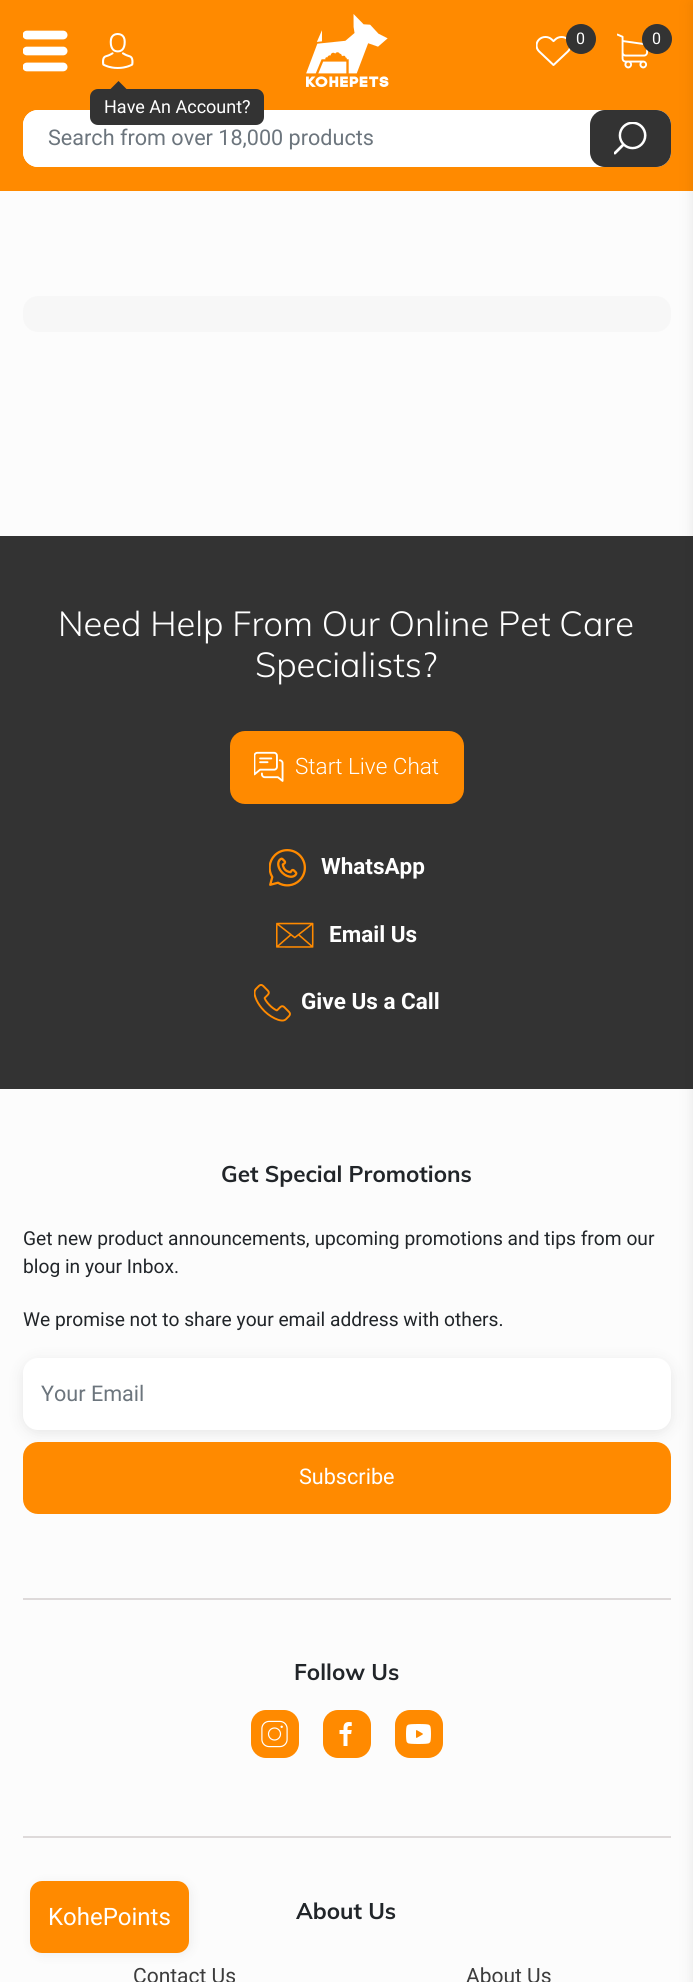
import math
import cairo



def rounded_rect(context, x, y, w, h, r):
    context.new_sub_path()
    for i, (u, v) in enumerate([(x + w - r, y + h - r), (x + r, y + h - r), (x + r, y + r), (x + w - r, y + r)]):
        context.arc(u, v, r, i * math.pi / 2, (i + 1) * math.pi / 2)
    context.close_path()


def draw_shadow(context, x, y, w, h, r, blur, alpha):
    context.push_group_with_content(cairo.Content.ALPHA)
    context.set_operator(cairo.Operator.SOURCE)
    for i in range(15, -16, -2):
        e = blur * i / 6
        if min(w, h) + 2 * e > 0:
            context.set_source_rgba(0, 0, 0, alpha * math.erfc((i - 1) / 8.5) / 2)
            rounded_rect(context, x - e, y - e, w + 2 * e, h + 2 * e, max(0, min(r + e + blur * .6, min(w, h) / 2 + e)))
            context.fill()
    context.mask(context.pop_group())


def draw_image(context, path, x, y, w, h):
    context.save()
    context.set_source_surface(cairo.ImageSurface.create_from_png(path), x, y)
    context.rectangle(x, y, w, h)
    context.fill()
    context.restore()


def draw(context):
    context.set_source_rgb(252 / 255, 252 / 255, 252 / 255)
    context.paint()
    context.set_source_rgb(1, 138 / 255, 0)
    context.rectangle(0, 0, 693, 191)
    context.fill()
    draw_image(context, "images/1.png", 306, 14, 83, 74)
    draw_image(context, "images/2.png", 536, 36, 35, 30)
    context.set_source_rgb(51 / 255, 51 / 255, 51 / 255)
    context.arc(581, 39, 15, 0, 2 * math.pi)
    context.fill()
    draw_image(context, "images/3.png", 617, 33, 31, 36)
    context.arc(657, 39, 15, 0, 2 * math.pi)
    context.fill()
    draw_image(context, "images/4.png", 23, 30, 45, 42)
    draw_image(context, "images/5.png", 102, 33, 32, 36)
    context.set_source_rgb(1, 1, 1)
    rounded_rect(context, 23, 110, 648, 57, 15)
    context.fill()
    context.new_path()
    context.move_to(38, 110)
    context.line_to(590, 110)
    context.line_to(590, 167)
    context.line_to(38, 167)
    context.curve_to(29.5, 167, 23, 160.5, 23, 152)
    context.line_to(23, 125)
    context.curve_to(23, 116.5, 29.5, 110, 38, 110)
    context.close_path()
    context.fill()
    context.set_source_rgb(51 / 255, 51 / 255, 51 / 255)
    rounded_rect(context, 90, 89, 174, 36, 8)
    context.fill()
    context.new_path()
    context.move_to(129, 91.5)
    context.line_to(108, 91.5)
    context.line_to(118.5, 81)
    context.close_path()
    context.fill()
    rounded_rect(context, 590, 110, 81, 57, 15)
    context.fill()
    draw_image(context, "images/6.png", 614, 122, 33, 33)
    context.set_source_rgb(247 / 255, 247 / 255, 247 / 255)
    rounded_rect(context, 23, 296, 648, 36, 15)
    context.fill()
    context.set_source_rgb(51 / 255, 51 / 255, 51 / 255)
    context.rectangle(0, 536, 693, 553)
    context.fill()
    context.set_source_rgb(0, 0, 0)
    draw_shadow(context, 23, 1361, 648, 72, 15, 7.5, 0.09)
    context.set_source_rgb(1, 1, 1)
    rounded_rect(context, 23, 1358, 648, 72, 15)
    context.fill()
    context.set_source_rgb(1, 138 / 255, 0)
    rounded_rect(context, 24, 1443, 646, 70, 14)
    context.fill_preserve()
    context.stroke()
    context.set_source_rgb(222 / 255, 218 / 255, 218 / 255)
    context.rectangle(23, 1598, 648, 2)
    context.fill()
    context.rectangle(23, 1836, 648, 2)
    context.fill()
    context.set_source_rgb(0, 0, 0)
    draw_shadow(context, 693, 3, 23, 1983, 0, 7.5, 0.09)
    context.set_source_rgb(1, 138 / 255, 0)
    rounded_rect(context, 231, 732, 232, 71, 14)
    context.fill_preserve()
    context.stroke()
    draw_image(context, "images/7.png", 254, 751, 30, 31)
    draw_image(context, "images/8.png", 269, 849, 37, 38)
    draw_image(context, "images/9.png", 276, 922, 38, 26)
    draw_image(context, "images/10.png", 254, 984, 37, 38)
    rounded_rect(context, 251, 1710, 48, 48, 15)
    context.fill()
    draw_image(context, "images/11.png", 261, 1720, 27, 28)
    rounded_rect(context, 323, 1710, 48, 48, 15)
    context.fill()
    draw_image(context, "images/12.png", 339, 1722, 13, 24)
    rounded_rect(context, 395, 1710, 48, 48, 15)
    context.fill()
    draw_image(context, "images/13.png", 406, 1724, 25, 20)
    context.set_source_rgb(0, 0, 0)
    draw_shadow(context, 32, 1883, 159, 72, 12, 6, 0.06)
    context.set_source_rgb(1, 138 / 255, 0)
    rounded_rect(context, 30, 1881, 159, 72, 12)
    context.fill()
    context.select_font_face("Roboto")
    context.set_font_size(16)
    context.set_source_rgb(1, 1, 1)
    context.move_to(576, 44)
    context.show_text("0")
    context.move_to(652, 44)
    context.show_text("0")
    context.set_font_size(18)
    context.move_to(104, 113)
    context.show_text("Have An Account?")
    context.set_font_size(21.6)
    context.set_source_rgb(108 / 255, 117 / 255, 125 / 255)
    context.move_to(48, 145)
    context.show_text("Search from over 18,000 products")
    context.select_font_face("Muli Light")
    context.set_font_size(34.5)
    context.set_source_rgb(1, 1, 1)
    context.move_to(58, 636)
    context.show_text("Need Help From Our Online Pet Care")
    context.move_to(255, 677)
    context.show_text("Specialists?")
    context.select_font_face("Roboto Light")
    context.set_font_size(22.5)
    context.move_to(295, 774)
    context.show_text("Start Live Chat")
    context.select_font_face("Roboto", cairo.FontSlant.NORMAL, cairo.FontWeight.BOLD)
    context.move_to(321, 874)
    context.show_text("WhatsApp")
    context.move_to(329, 942)
    context.show_text("Email Us")
    context.move_to(301, 1009)
    context.show_text("Give Us a Call")
    context.select_font_face("Muli", cairo.FontSlant.NORMAL, cairo.FontWeight.BOLD)
    context.set_source_rgb(33 / 255, 37 / 255, 41 / 255)
    context.move_to(221, 1182)
    context.show_text("Get Special Promotions")
    context.select_font_face("Roboto")
    context.set_font_size(19.2)
    context.move_to(23, 1245)
    context.show_text("Get new product announcements, upcoming promotions and tips from our")
    context.move_to(23, 1273)
    context.show_text("blog in your Inbox.")
    context.move_to(23, 1326)
    context.show_text("We promise not to share your email address with others.")
    context.set_font_size(21.6)
    context.set_source_rgb(108 / 255, 117 / 255, 125 / 255)
    context.move_to(41, 1401)
    context.show_text("Your Email")
    context.set_source_rgb(1, 1, 1)
    context.move_to(299, 1484)
    context.show_text("Subscribe")
    context.select_font_face("Muli", cairo.FontSlant.NORMAL, cairo.FontWeight.BOLD)
    context.set_font_size(22.5)
    context.set_source_rgb(33 / 255, 37 / 255, 41 / 255)
    context.move_to(294, 1680)
    context.show_text("Follow Us")
    context.move_to(296, 1919)
    context.show_text("About Us")
    context.select_font_face("Roboto")
    context.set_font_size(21)
    context.set_source_rgb(60 / 255, 60 / 255, 60 / 255)
    context.move_to(133, 1983)
    context.show_text("Contact Us")
    context.move_to(466, 1983)
    context.show_text("About Us")
    context.set_font_size(24)
    context.set_source_rgb(1, 1, 1)
    context.move_to(48, 1925)
    context.show_text("KohePoints")


surface = cairo.ImageSurface(cairo.Format.RGB24, 693, 1982)
context = cairo.Context(surface)
options = cairo.FontOptions()
options.set_hint_metrics(cairo.HintMetrics.OFF)
options.set_hint_style(cairo.HintStyle.NONE)
context.set_font_options(options)
context.set_miter_limit(4)
draw(context)
surface.write_to_png("out.png")
